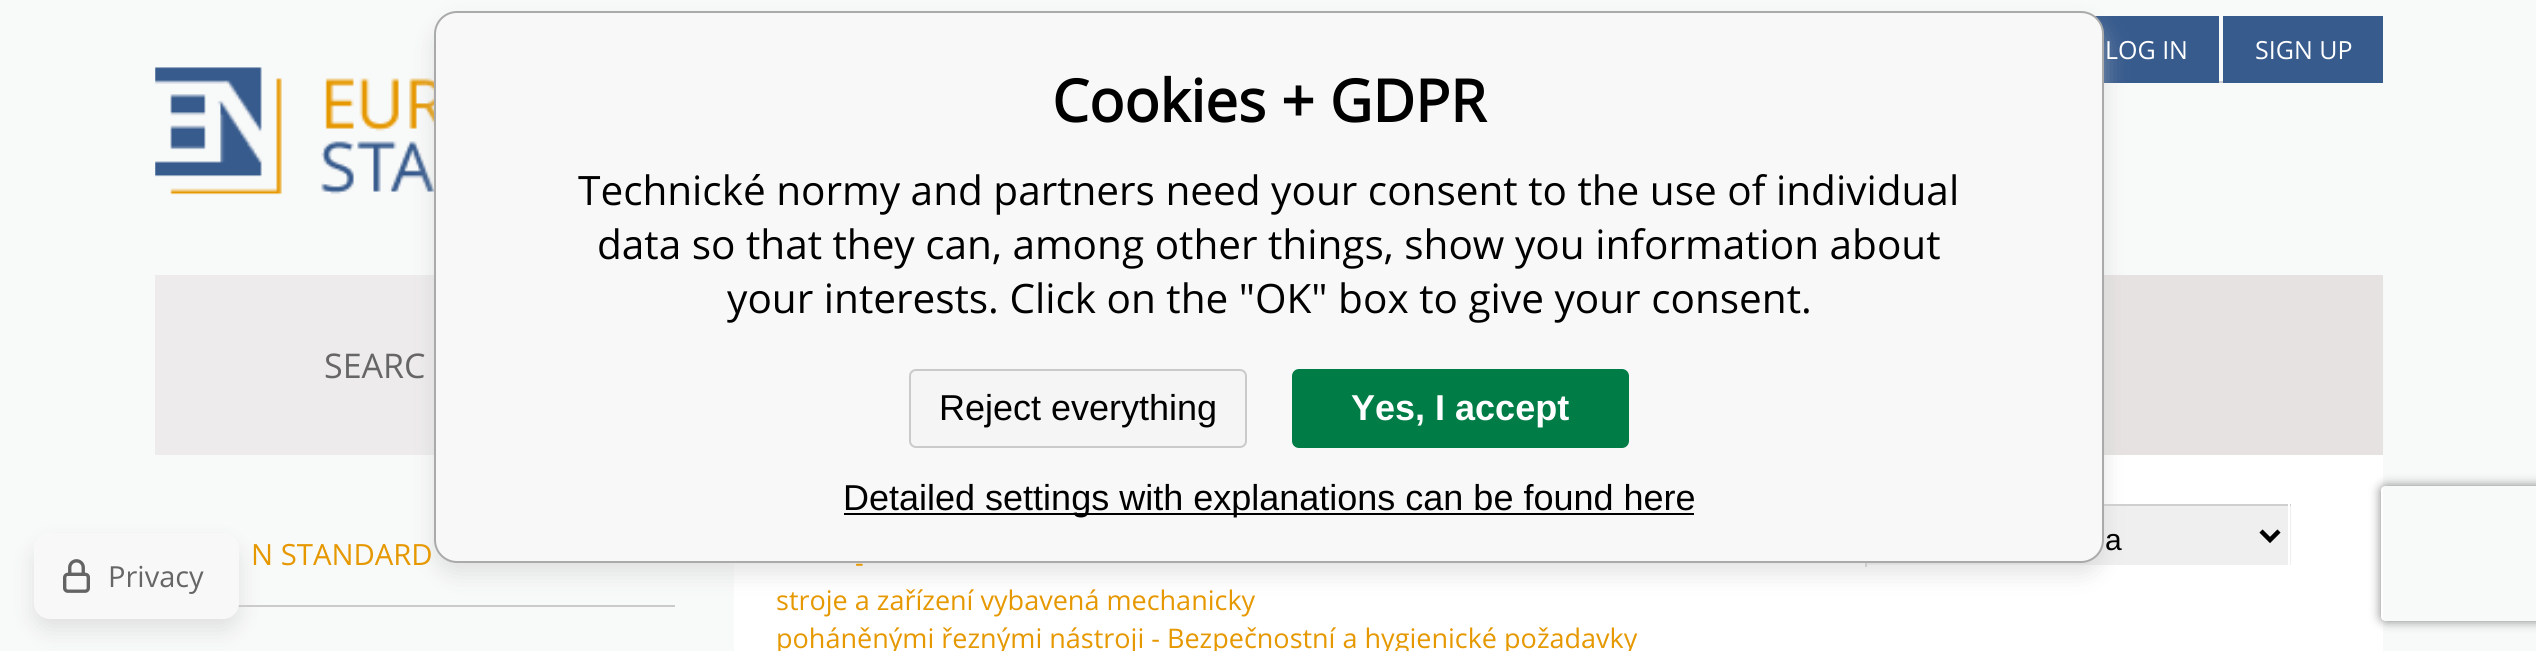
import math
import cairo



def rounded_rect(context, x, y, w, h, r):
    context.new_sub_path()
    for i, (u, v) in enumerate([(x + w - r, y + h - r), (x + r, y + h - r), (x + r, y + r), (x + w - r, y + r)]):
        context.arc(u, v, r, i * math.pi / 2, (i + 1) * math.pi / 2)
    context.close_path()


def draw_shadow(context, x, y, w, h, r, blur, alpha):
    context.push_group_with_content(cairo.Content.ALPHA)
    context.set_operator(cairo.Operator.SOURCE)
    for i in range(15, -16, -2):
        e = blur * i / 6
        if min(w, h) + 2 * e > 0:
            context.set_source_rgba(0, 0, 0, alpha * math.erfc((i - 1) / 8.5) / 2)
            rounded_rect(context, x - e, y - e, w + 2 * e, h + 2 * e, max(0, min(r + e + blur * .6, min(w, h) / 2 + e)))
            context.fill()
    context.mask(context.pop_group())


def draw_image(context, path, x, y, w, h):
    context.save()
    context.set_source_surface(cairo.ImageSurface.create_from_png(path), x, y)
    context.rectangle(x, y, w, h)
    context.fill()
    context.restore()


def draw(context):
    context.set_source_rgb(248 / 255, 249 / 255, 249 / 255)
    context.paint()
    context.set_source_rgb(203 / 255, 203 / 255, 203 / 255)
    context.rectangle(2219, 81, 4, 2)
    context.fill()
    context.set_source_rgb(55 / 255, 91 / 255, 141 / 255)
    context.rectangle(2095, 16, 124, 67)
    context.fill()
    context.rectangle(2223, 16, 160, 67)
    context.fill()
    draw_image(context, "images/1.png", 155, 67, 279, 128)
    context.set_source_rgb(237 / 255, 235 / 255, 235 / 255)
    context.rectangle(155, 275, 279, 180)
    context.fill()
    context.set_source_rgb(229 / 255, 226 / 255, 225 / 255)
    context.rectangle(2104, 275, 279, 180)
    context.fill()
    context.set_source_rgb(203 / 255, 203 / 255, 203 / 255)
    context.rectangle(238, 605, 437, 2)
    context.fill()
    context.set_source_rgb(1, 1, 1)
    context.rectangle(734, 455, 1649, 196)
    context.fill()
    context.set_source_rgb(239 / 255, 239 / 255, 239 / 255)
    context.rectangle(1867, 506, 424, 59)
    context.fill()
    context.set_source_rgb(207 / 255, 207 / 255, 207 / 255)
    context.rectangle(2104, 504, 187, 2)
    context.fill()
    context.set_source_rgb(1, 1, 1)
    context.rectangle(2288, 504, 2, 63)
    context.fill()
    context.set_source_rgb(207 / 255, 207 / 255, 207 / 255)
    context.rectangle(1865, 563, 2, 4)
    context.fill()
    context.new_path()
    context.move_to(2261, 531)
    context.line_to(2270, 540)
    context.line_to(2279, 531)
    context.set_source_rgb(0, 0, 0)
    context.set_line_width(4.5)
    context.stroke()
    context.set_source_rgb(200 / 255, 200 / 255, 200 / 255)
    draw_shadow(context, 434, 23, 1670, 551, 23, 11, 0.5)
    context.set_source_rgb(248 / 255, 248 / 255, 248 / 255)
    rounded_rect(context, 435, 12, 1668, 550, 22)
    context.fill_preserve()
    context.set_source_rgb(170 / 255, 170 / 255, 170 / 255)
    context.set_line_width(2)
    context.stroke()
    context.set_source_rgb(245 / 255, 245 / 255, 245 / 255)
    rounded_rect(context, 910, 370, 336, 77, 6)
    context.fill_preserve()
    context.set_source_rgb(202 / 255, 202 / 255, 202 / 255)
    context.stroke()
    context.set_source_rgb(0, 124 / 255, 71 / 255)
    rounded_rect(context, 1293, 370, 335, 77, 6)
    context.fill_preserve()
    context.stroke()
    context.set_source_rgb(0, 0, 0)
    context.rectangle(844, 513, 850, 2)
    context.fill()
    context.set_source_rgb(200 / 255, 200 / 255, 200 / 255)
    draw_shadow(context, 34, 545, 205, 85, 16, 11, 0.5)
    context.set_source_rgb(248 / 255, 248 / 255, 248 / 255)
    rounded_rect(context, 34, 533, 205, 86, 16)
    context.fill()
    draw_image(context, "images/2.png", 63, 559, 27, 34)
    context.save()
    context.set_fill_rule(cairo.FillRule.EVEN_ODD)
    context.new_path()
    context.move_to(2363, 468)
    context.line_to(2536, 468)
    context.line_to(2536, 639)
    context.line_to(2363, 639)
    context.close_path()
    context.move_to(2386, 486)
    context.line_to(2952, 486)
    context.curve_to(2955, 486, 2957, 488, 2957, 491)
    context.line_to(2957, 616)
    context.curve_to(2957, 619, 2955, 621, 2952, 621)
    context.line_to(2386, 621)
    context.curve_to(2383, 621, 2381, 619, 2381, 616)
    context.line_to(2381, 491)
    context.curve_to(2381, 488, 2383, 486, 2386, 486)
    context.close_path()
    context.clip()
    context.set_source_rgb(128 / 255, 128 / 255, 128 / 255)
    draw_shadow(context, 2381, 486, 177, 135, 5, 5.5, 1)
    context.restore()
    context.select_font_face("Open Sans")
    context.set_font_size(25)
    context.set_source_rgb(1, 1, 1)
    context.move_to(2105, 59)
    context.show_text("LOG IN")
    context.move_to(2255, 59)
    context.show_text("SIGN UP")
    context.set_font_size(34)
    context.set_source_rgb(102 / 255, 102 / 255, 102 / 255)
    context.move_to(324, 378)
    context.show_text("SEARC")
    context.set_font_size(29.25)
    context.set_source_rgb(230 / 255, 152 / 255, 0)
    context.move_to(251, 565)
    context.show_text("N STANDARD")
    context.select_font_face("Liberation Sans")
    context.set_font_size(30)
    context.set_source_rgb(0, 0, 0)
    context.move_to(2105, 550)
    context.show_text("a")
    context.select_font_face("Open Sans")
    context.set_font_size(27)
    context.set_source_rgb(230 / 255, 152 / 255, 0)
    context.move_to(855, 572)
    context.show_text("-")
    context.move_to(776, 610)
    context.show_text("stroje a zařízení vybavená mechanicky")
    context.move_to(776, 648)
    context.show_text("poháněnými řeznými nástroji - Bezpečnostní a hygienické požadavky")
    context.select_font_face("Open Sans", cairo.FontSlant.NORMAL, cairo.FontWeight.BOLD)
    context.set_font_size(58.5)
    context.set_source_rgb(0, 0, 0)
    context.move_to(1052, 122)
    context.show_text("Cookies + GDPR")
    context.select_font_face("Open Sans")
    context.set_font_size(40.5)
    context.move_to(578, 205)
    context.show_text("Technické normy and partners need your consent to the use of individual")
    context.move_to(597, 259)
    context.show_text("data so that they can, among other things, show you information about")
    context.move_to(727, 313)
    context.show_text("your interests. Click on the \"OK\" box to give your consent.")
    context.select_font_face("Liberation Sans")
    context.set_font_size(36)
    context.move_to(939, 420)
    context.show_text("Reject everything")
    context.select_font_face("Liberation Sans", cairo.FontSlant.NORMAL, cairo.FontWeight.BOLD)
    context.set_source_rgb(1, 1, 1)
    context.move_to(1351, 420)
    context.show_text("Yes, I accept")
    context.select_font_face("Liberation Sans")
    context.set_source_rgb(0, 0, 0)
    context.move_to(843, 510)
    context.show_text("Detailed settings with explanations can be found here")
    context.select_font_face("Open Sans")
    context.set_font_size(29)
    context.set_source_rgb(102 / 255, 102 / 255, 102 / 255)
    context.move_to(108, 587)
    context.show_text("Privacy")


surface = cairo.ImageSurface(cairo.Format.RGB24, 2536, 651)
context = cairo.Context(surface)
options = cairo.FontOptions()
options.set_hint_metrics(cairo.HintMetrics.OFF)
options.set_hint_style(cairo.HintStyle.NONE)
context.set_font_options(options)
context.set_miter_limit(4)
draw(context)
surface.write_to_png("out.png")
